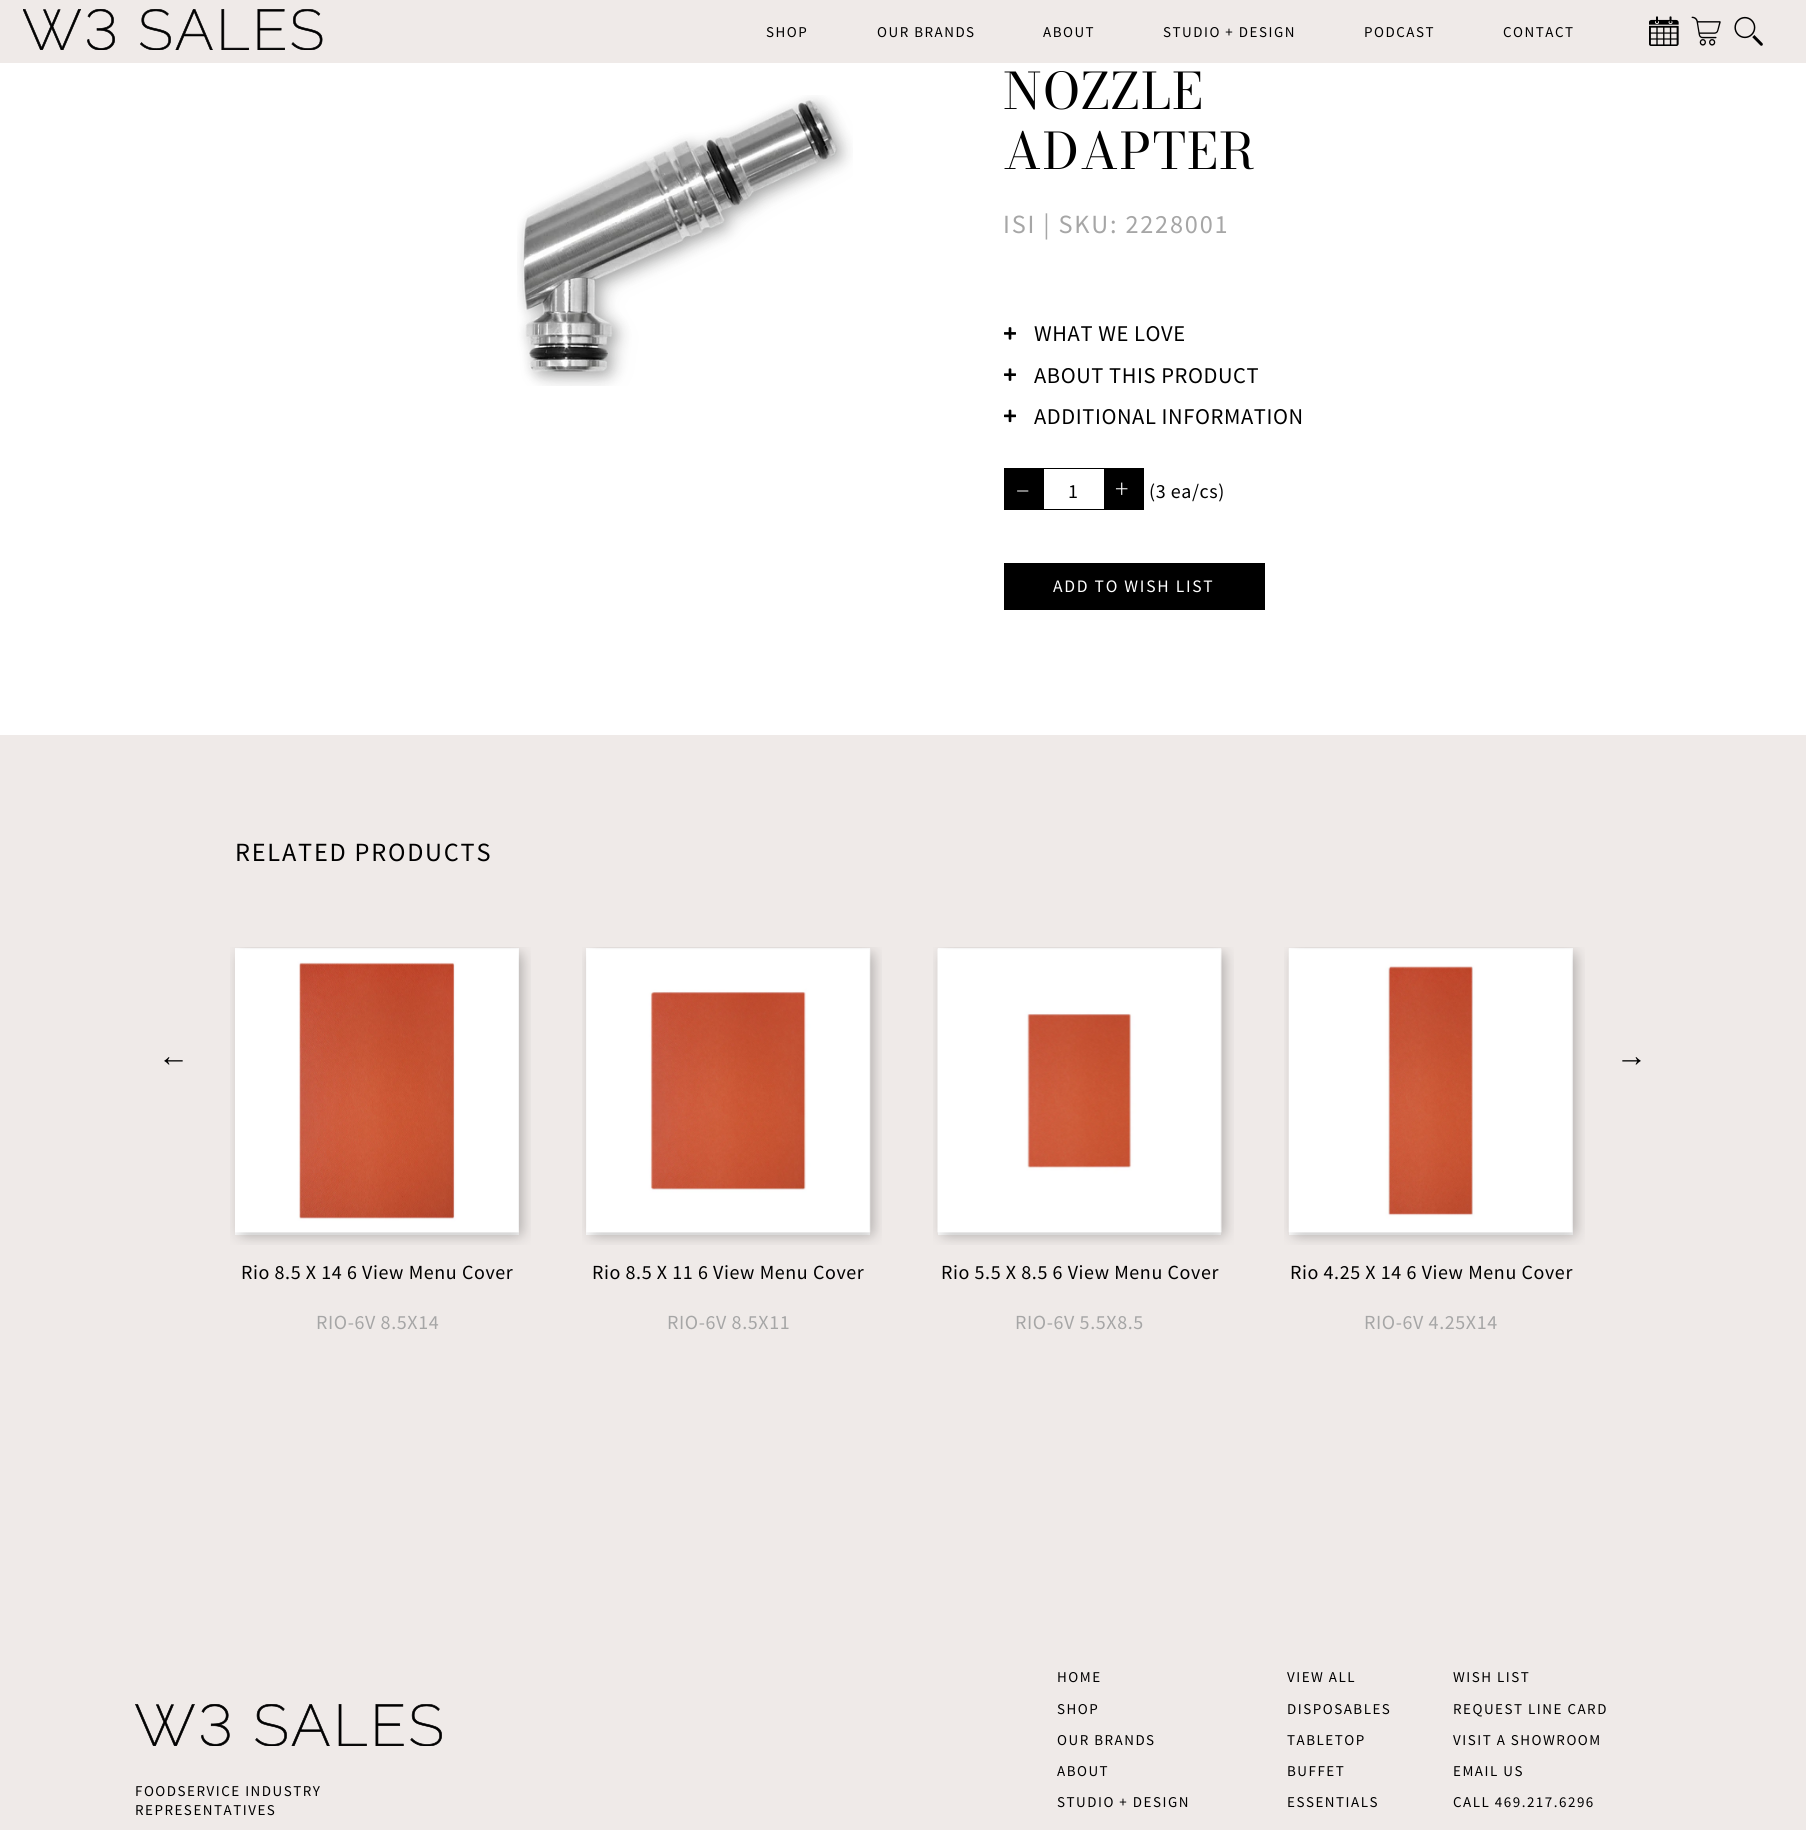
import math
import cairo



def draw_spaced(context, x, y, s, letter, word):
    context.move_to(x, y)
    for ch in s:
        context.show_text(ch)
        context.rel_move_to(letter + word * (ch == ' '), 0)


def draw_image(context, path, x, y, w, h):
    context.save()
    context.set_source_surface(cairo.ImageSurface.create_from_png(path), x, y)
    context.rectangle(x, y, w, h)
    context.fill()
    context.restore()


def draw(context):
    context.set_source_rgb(1, 1, 1)
    context.paint()
    context.set_source_rgb(239 / 255, 234 / 255, 232 / 255)
    context.rectangle(0, 0, 1806, 63)
    context.fill()
    draw_image(context, "images/1.png", 23, 9, 300, 41)
    draw_image(context, "images/2.png", 1649, 16, 30, 30)
    draw_image(context, "images/3.png", 1691, 16, 30, 30)
    draw_image(context, "images/4.png", 1734, 16, 29, 30)
    draw_image(context, "images/5.png", 517, 95, 336, 291)
    draw_image(context, "images/6.png", 1004, 327, 12, 13)
    draw_image(context, "images/7.png", 1004, 368, 12, 13)
    draw_image(context, "images/8.png", 1004, 409, 12, 14)
    context.rectangle(1004.5, 468.5, 139, 41)
    context.set_source_rgb(0, 0, 0)
    context.set_line_width(1)
    context.stroke()
    context.rectangle(1005, 469, 39, 40)
    context.fill()
    context.rectangle(1104, 469, 39, 40)
    context.fill()
    context.rectangle(1004, 563, 261, 47)
    context.fill()
    context.set_source_rgb(239 / 255, 234 / 255, 232 / 255)
    context.rectangle(0, 735, 1806, 1095)
    context.fill()
    context.set_source_rgb(1, 1, 1)
    context.rectangle(235, 948, 284, 287)
    context.fill()
    draw_image(context, "images/9.png", 230, 947, 301, 298)
    context.rectangle(586, 948, 284, 287)
    context.fill()
    draw_image(context, "images/10.png", 582, 947, 300, 298)
    context.rectangle(938, 948, 283, 287)
    context.fill()
    draw_image(context, "images/11.png", 933, 947, 301, 298)
    context.rectangle(1289, 948, 284, 287)
    context.fill()
    draw_image(context, "images/12.png", 1284, 947, 301, 298)
    draw_image(context, "images/13.png", 135, 1704, 307, 42)
    context.select_font_face("Source Sans Pro")
    context.set_font_size(15)
    context.set_source_rgb(0, 0, 0)
    draw_spaced(context, 766, 37, "SHOP", 1.5, 0)
    draw_spaced(context, 877, 37, "OUR BRANDS", 1.5, 0)
    draw_spaced(context, 1043, 37, "ABOUT", 1.5, 0)
    draw_spaced(context, 1163, 37, "STUDIO + DESIGN", 1.5, 0)
    draw_spaced(context, 1364, 37, "PODCAST", 1.5, 0)
    draw_spaced(context, 1503, 37, "CONTACT", 1.5, 0)
    context.select_font_face("Bodoni Moda")
    context.set_font_size(50)
    draw_spaced(context, 1003, 109, "NOZZLE", 1, 0)
    draw_spaced(context, 1003, 169, "ADAPTER", 1, 0)
    context.select_font_face("Source Sans Pro")
    context.set_font_size(26.25)
    context.set_source_rgb(166 / 255, 166 / 255, 166 / 255)
    draw_spaced(context, 1003, 233, "ISI | SKU: 2228001", 1.8, 0)
    context.set_font_size(22.5)
    context.set_source_rgb(0, 0, 0)
    draw_spaced(context, 1034, 341, "WHAT WE LOVE", 0.6, 0)
    draw_spaced(context, 1034, 383, "ABOUT THIS PRODUCT", 0.6, 0)
    draw_spaced(context, 1034, 424, "ADDITIONAL INFORMATION", 0.6, 0)
    context.select_font_face("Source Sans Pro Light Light")
    context.set_font_size(28)
    context.set_source_rgb(1, 1, 1)
    draw_spaced(context, 1016, 498, "–", 3, 0)
    context.select_font_face("Source Sans Pro")
    context.set_font_size(20)
    context.set_source_rgb(0, 0, 0)
    draw_spaced(context, 1068, 498, "1", 2, 0)
    context.select_font_face("Source Sans Pro Light Light")
    context.set_font_size(28)
    context.set_source_rgb(1, 1, 1)
    draw_spaced(context, 1115, 498, "+", 3, 0)
    context.select_font_face("Source Sans Pro")
    context.set_font_size(20)
    context.set_source_rgb(0, 0, 0)
    draw_spaced(context, 1149, 498, "(3 ea/cs)", 0.6, 0)
    context.set_font_size(17.5)
    context.set_source_rgb(1, 1, 1)
    draw_spaced(context, 1053, 592, "ADD TO WISH LIST", 1.75, 0)
    context.set_font_size(26.25)
    context.set_source_rgb(0, 0, 0)
    draw_spaced(context, 235, 861, "RELATED PRODUCTS", 1.8, 0)
    context.select_font_face("Liberation Serif")
    context.set_font_size(31)
    draw_spaced(context, 158, 1066, "←", 0.6, 0)
    draw_spaced(context, 1616, 1066, "→", 0.6, 0)
    context.select_font_face("Source Sans Pro")
    context.set_font_size(20)
    draw_spaced(context, 241, 1279, "Rio 8.5 X 14 6 View Menu Cover", 0.6, 0)
    context.set_source_rgb(166 / 255, 166 / 255, 166 / 255)
    draw_spaced(context, 316, 1329, "RIO-6V 8.5X14", 0.6, 0)
    context.set_source_rgb(0, 0, 0)
    draw_spaced(context, 592, 1279, "Rio 8.5 X 11 6 View Menu Cover", 0.6, 0)
    context.set_source_rgb(166 / 255, 166 / 255, 166 / 255)
    draw_spaced(context, 667, 1329, "RIO-6V 8.5X11", 0.6, 0)
    context.set_source_rgb(0, 0, 0)
    draw_spaced(context, 941, 1279, "Rio 5.5 X 8.5 6 View Menu Cover", 0.6, 0)
    context.set_source_rgb(166 / 255, 166 / 255, 166 / 255)
    draw_spaced(context, 1015, 1329, "RIO-6V 5.5X8.5", 0.6, 0)
    context.set_source_rgb(0, 0, 0)
    draw_spaced(context, 1290, 1279, "Rio 4.25 X 14 6 View Menu Cover", 0.6, 0)
    context.set_source_rgb(166 / 255, 166 / 255, 166 / 255)
    draw_spaced(context, 1364, 1329, "RIO-6V 4.25X14", 0.6, 0)
    context.set_font_size(15)
    context.set_source_rgb(0, 0, 0)
    draw_spaced(context, 135, 1796, "FOODSERVICE INDUSTRY", 1.5, 0)
    draw_spaced(context, 135, 1815, "REPRESENTATIVES", 1.5, 0)
    draw_spaced(context, 1057, 1682, "HOME", 1.5, 0)
    draw_spaced(context, 1057, 1714, "SHOP", 1.5, 0)
    draw_spaced(context, 1057, 1745, "OUR BRANDS", 1.5, 0)
    draw_spaced(context, 1057, 1776, "ABOUT", 1.5, 0)
    draw_spaced(context, 1057, 1807, "STUDIO + DESIGN", 1.5, 0)
    draw_spaced(context, 1287, 1682, "VIEW ALL", 1.5, 0)
    draw_spaced(context, 1287, 1714, "DISPOSABLES", 1.5, 0)
    draw_spaced(context, 1287, 1745, "TABLETOP", 1.5, 0)
    draw_spaced(context, 1287, 1776, "BUFFET", 1.5, 0)
    draw_spaced(context, 1287, 1807, "ESSENTIALS", 1.5, 0)
    draw_spaced(context, 1453, 1682, "WISH LIST", 1.5, 0)
    draw_spaced(context, 1453, 1714, "REQUEST LINE CARD", 1.5, 0)
    draw_spaced(context, 1453, 1745, "VISIT A SHOWROOM", 1.5, 0)
    draw_spaced(context, 1453, 1776, "EMAIL US", 1.5, 0)
    draw_spaced(context, 1453, 1807, "CALL 469.217.6296", 1.5, 0)


surface = cairo.ImageSurface(cairo.Format.RGB24, 1806, 1830)
context = cairo.Context(surface)
options = cairo.FontOptions()
options.set_hint_metrics(cairo.HintMetrics.OFF)
options.set_hint_style(cairo.HintStyle.NONE)
context.set_font_options(options)
context.set_miter_limit(4)
draw(context)
surface.write_to_png("out.png")
